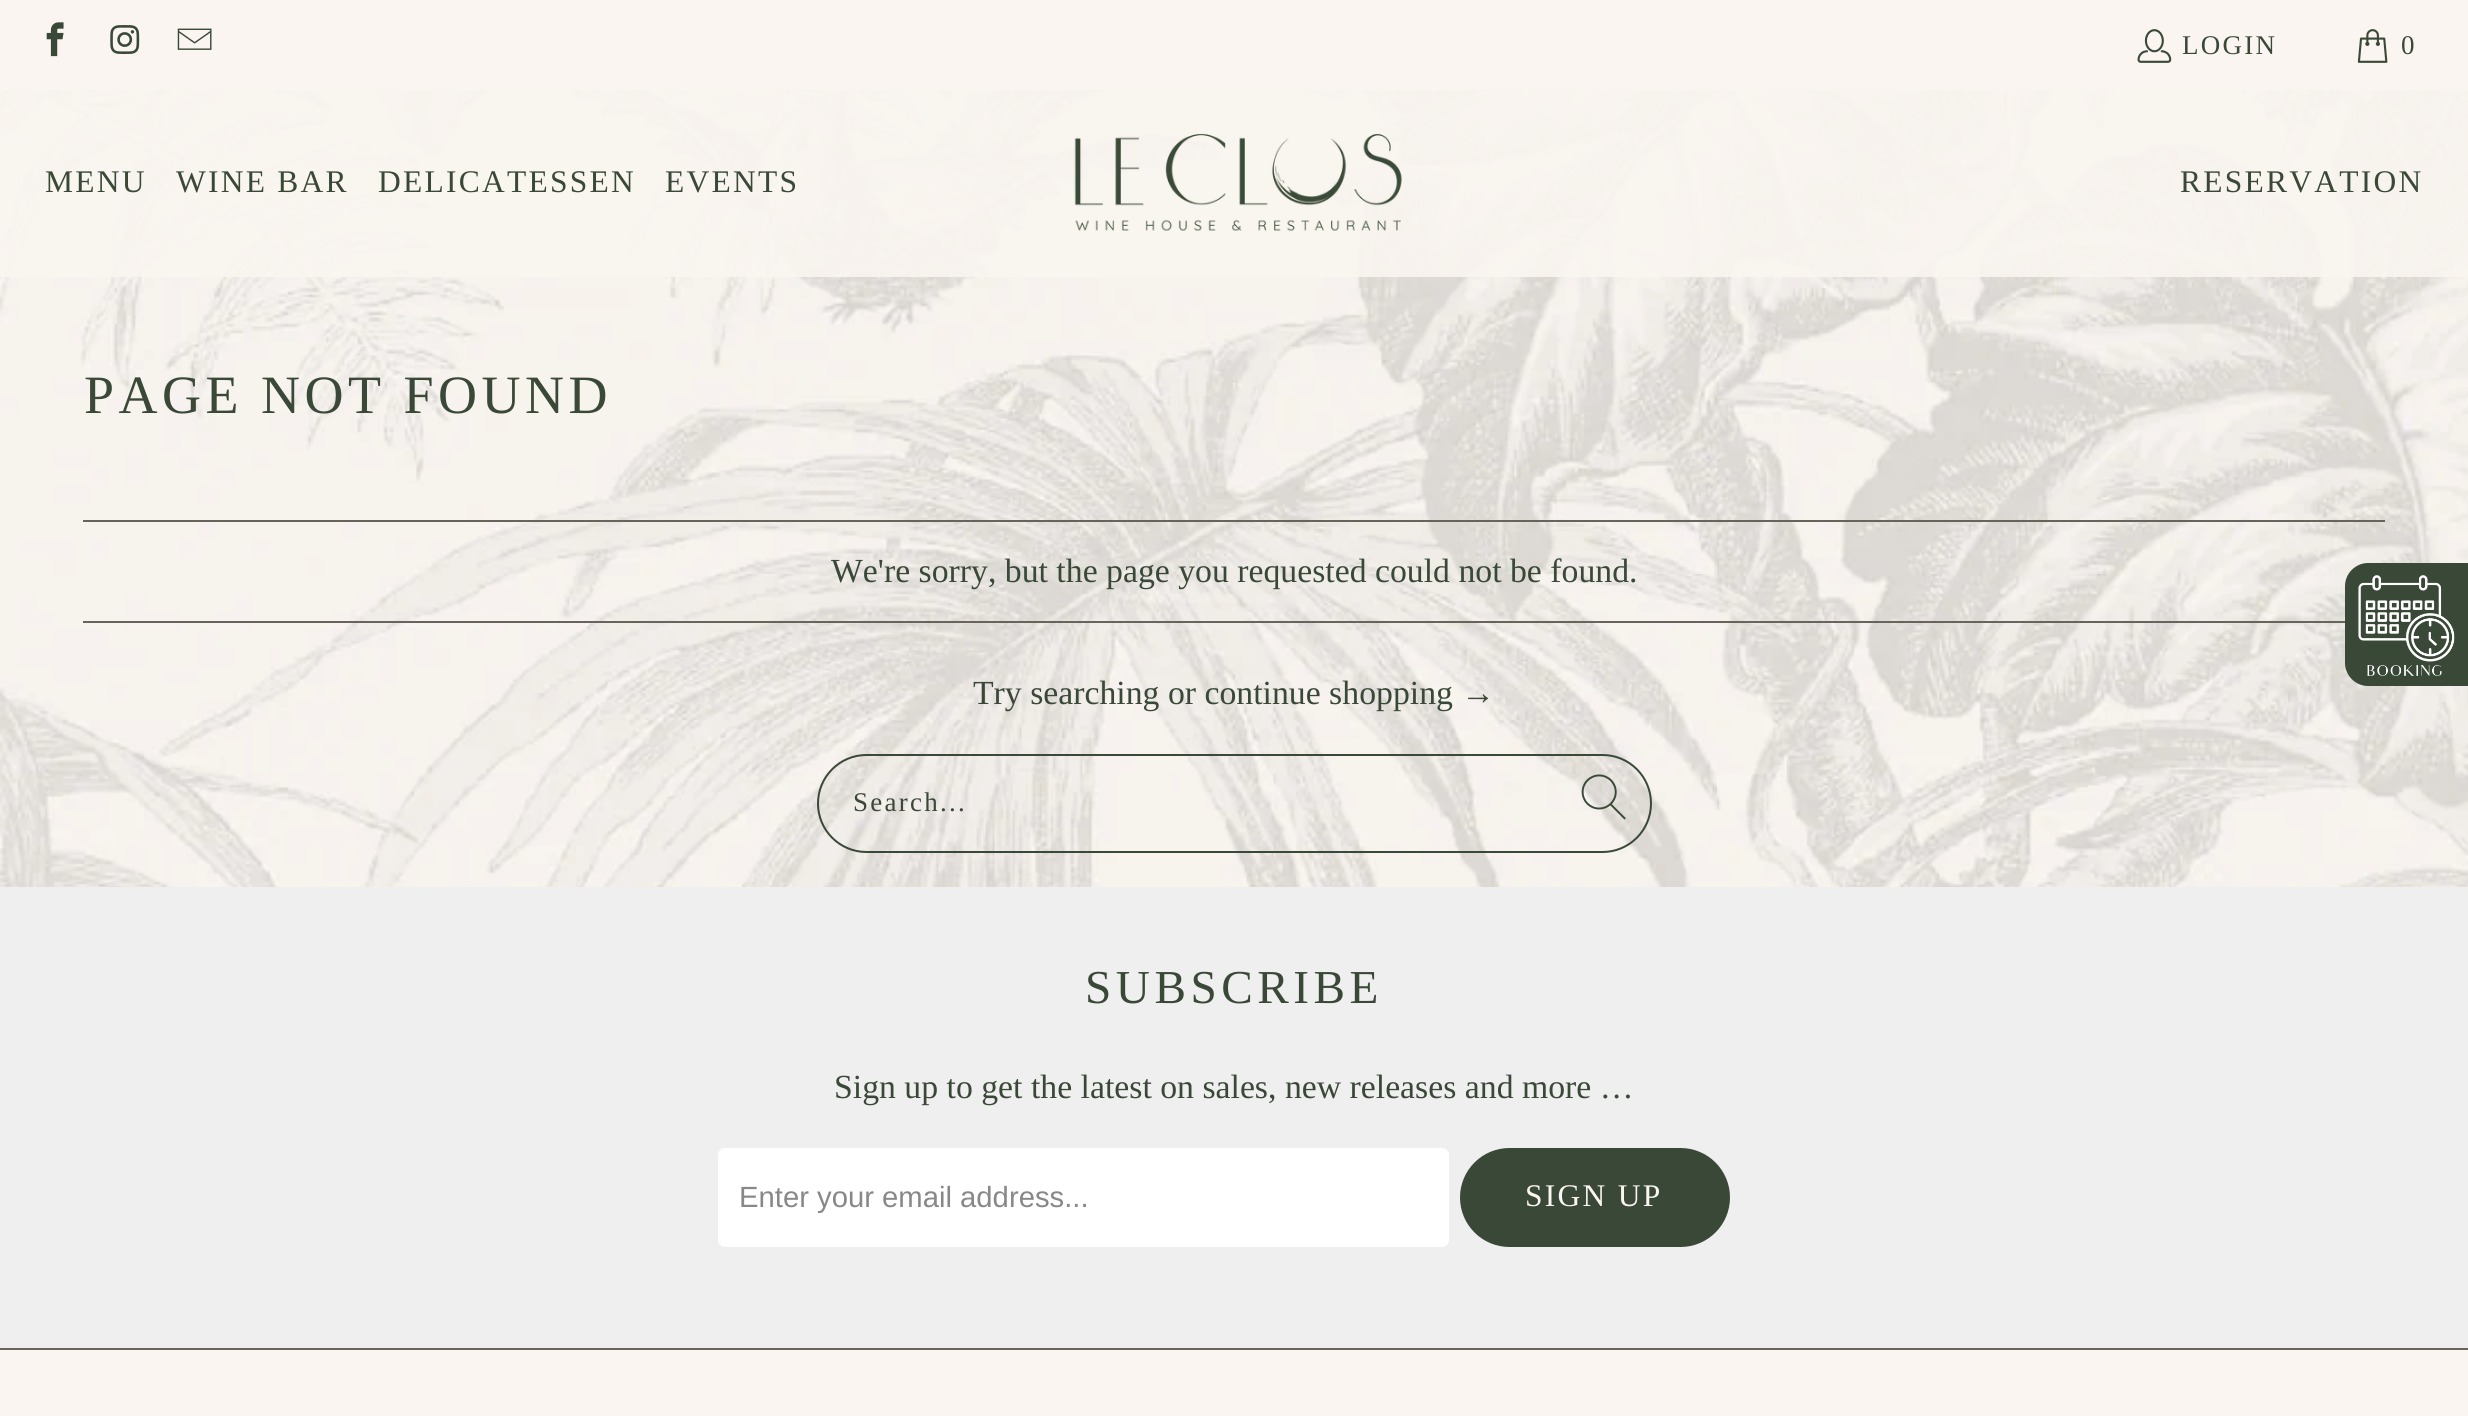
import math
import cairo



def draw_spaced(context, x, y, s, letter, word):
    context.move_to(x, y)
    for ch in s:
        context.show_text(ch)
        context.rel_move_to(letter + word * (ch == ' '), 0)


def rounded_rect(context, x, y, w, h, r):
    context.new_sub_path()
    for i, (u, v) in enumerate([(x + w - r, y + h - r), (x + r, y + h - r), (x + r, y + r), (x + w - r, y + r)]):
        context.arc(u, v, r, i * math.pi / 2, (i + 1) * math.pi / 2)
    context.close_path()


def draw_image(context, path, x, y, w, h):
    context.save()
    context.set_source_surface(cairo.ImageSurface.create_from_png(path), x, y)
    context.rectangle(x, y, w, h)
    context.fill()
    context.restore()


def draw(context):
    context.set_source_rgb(1, 1, 1)
    context.paint()
    draw_image(context, "images/1.png", 0, 90, 2468, 797)
    context.set_source_rgb(250 / 255, 245 / 255, 240 / 255)
    context.rectangle(0, 0, 2468, 90)
    context.fill()
    draw_image(context, "images/2.png", 46, 22, 18, 35)
    draw_image(context, "images/3.png", 110, 25, 30, 29)
    draw_image(context, "images/4.png", 177, 28, 35, 22)
    draw_image(context, "images/5.png", 2137, 29, 35, 34)
    draw_image(context, "images/6.png", 2357, 29, 31, 34)
    context.set_source_rgba(250 / 255, 245 / 255, 240 / 255, 0.9)
    context.rectangle(0, 90, 2468, 187)
    context.fill()
    draw_image(context, "images/7.png", 1074, 133, 328, 98)
    context.set_source_rgb(105 / 255, 100 / 255, 91 / 255)
    context.rectangle(83, 520, 2302, 2)
    context.fill()
    context.rectangle(83, 621, 2262, 2)
    context.fill()
    rounded_rect(context, 818, 755, 833, 97, 48.5)
    context.set_source_rgb(58 / 255, 73 / 255, 55 / 255)
    context.stroke()
    draw_image(context, "images/8.png", 1581, 774, 45, 46)
    context.set_source_rgb(239 / 255, 239 / 255, 239 / 255)
    context.rectangle(0, 887, 2468, 461)
    context.fill()
    context.set_source_rgb(1, 1, 1)
    rounded_rect(context, 718, 1148, 731, 99, 7)
    context.fill()
    context.set_source_rgb(58 / 255, 73 / 255, 55 / 255)
    rounded_rect(context, 1461, 1149, 268, 97, 48.5)
    context.fill_preserve()
    context.stroke()
    context.new_path()
    context.move_to(2368, 563)
    context.line_to(2468, 563)
    context.line_to(2468, 686)
    context.line_to(2368, 686)
    context.curve_to(2355.5, 686, 2345, 675.5, 2345, 663)
    context.line_to(2345, 586)
    context.curve_to(2345, 573.5, 2355.5, 563, 2368, 563)
    context.close_path()
    context.fill()
    draw_image(context, "images/9.png", 2358, 575, 97, 101)
    context.set_source_rgb(250 / 255, 245 / 255, 240 / 255)
    context.rectangle(0, 1350, 2468, 66)
    context.fill()
    context.set_source_rgb(105 / 255, 100 / 255, 91 / 255)
    context.rectangle(0, 1348, 2468, 2)
    context.fill()
    context.select_font_face("Liberation Serif")
    context.set_font_size(27)
    context.set_source_rgb(58 / 255, 73 / 255, 55 / 255)
    draw_spaced(context, 2182, 54, "LOGIN", 2.25, 0)
    draw_spaced(context, 2401, 54, "0", 2.25, 0)
    context.set_font_size(31.5)
    draw_spaced(context, 45, 192, "MENU", 2.25, 0)
    draw_spaced(context, 176, 192, "WINE BAR", 2.25, 0)
    draw_spaced(context, 378, 192, "DELICATESSEN", 2.25, 0)
    draw_spaced(context, 665, 192, "EVENTS", 2.25, 0)
    draw_spaced(context, 2180, 192, "RESERVATION", 2.25, 0)
    context.set_font_size(54)
    draw_spaced(context, 84, 413, "PAGE NOT FOUND", 4.5, 0)
    context.set_font_size(33.75)
    context.move_to(831, 582)
    context.show_text("We're sorry, but the page you requested could not be found.")
    context.move_to(973, 704)
    context.show_text("Try searching or continue shopping →")
    context.set_font_size(27)
    draw_spaced(context, 853, 811, "Search...", 2.25, 0)
    context.set_font_size(47.25)
    draw_spaced(context, 1085, 1003, "SUBSCRIBE", 4.5, 0)
    context.set_font_size(33.75)
    context.move_to(834, 1098)
    context.show_text("Sign up to get the latest on sales, new releases and more …")
    context.select_font_face("Liberation Sans")
    context.set_font_size(29.25)
    context.set_source_rgb(136 / 255, 136 / 255, 136 / 255)
    context.move_to(739, 1207)
    context.show_text("Enter your email address...")
    context.select_font_face("Liberation Serif")
    context.set_font_size(31.5)
    context.set_source_rgb(250 / 255, 245 / 255, 240 / 255)
    draw_spaced(context, 1525, 1206, "SIGN UP", 2.25, 0)


surface = cairo.ImageSurface(cairo.Format.RGB24, 2468, 1416)
context = cairo.Context(surface)
options = cairo.FontOptions()
options.set_hint_metrics(cairo.HintMetrics.OFF)
options.set_hint_style(cairo.HintStyle.NONE)
context.set_font_options(options)
context.set_miter_limit(4)
draw(context)
surface.write_to_png("out.png")
